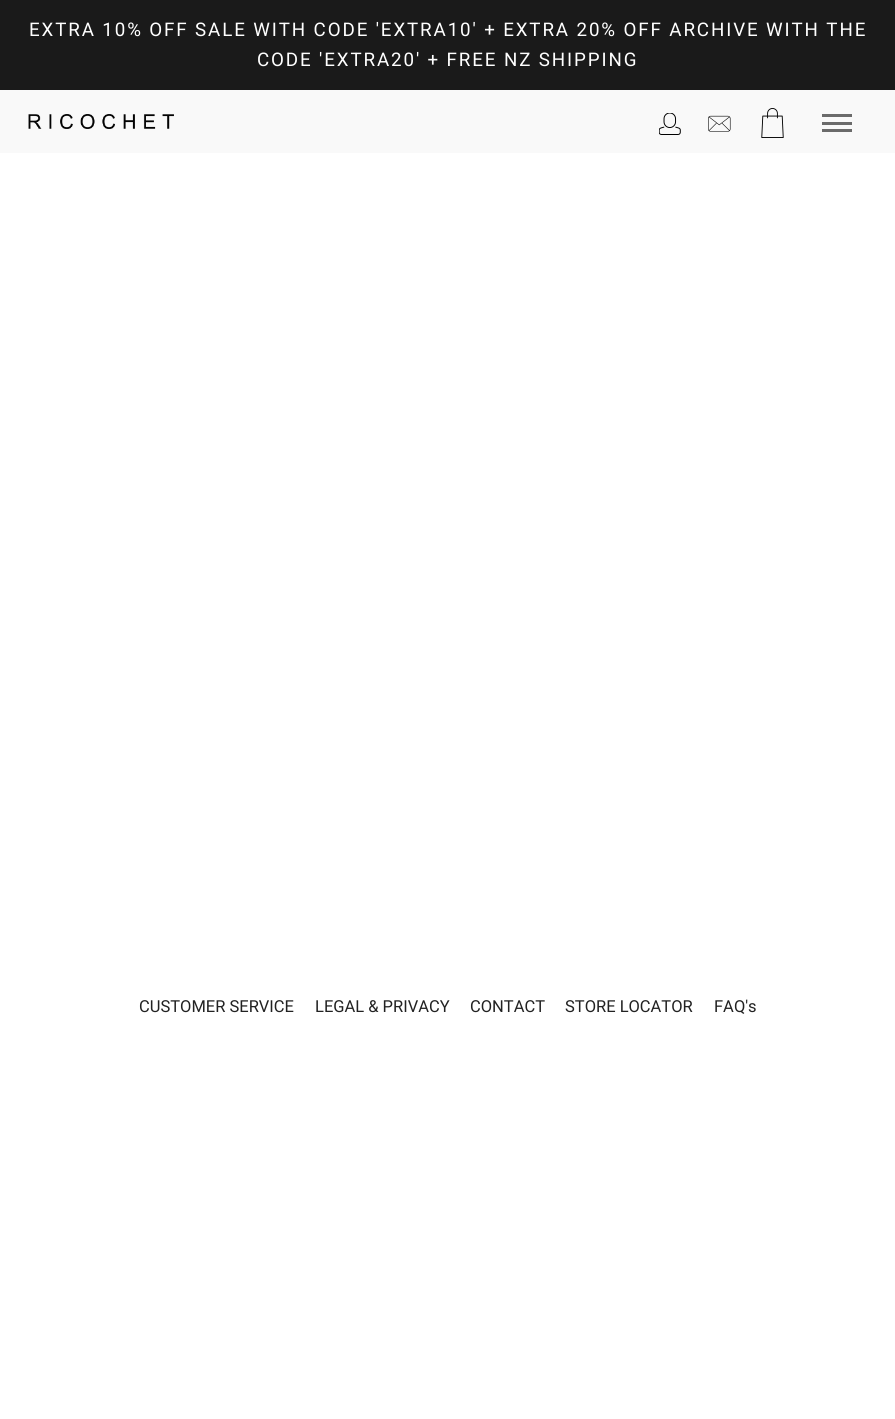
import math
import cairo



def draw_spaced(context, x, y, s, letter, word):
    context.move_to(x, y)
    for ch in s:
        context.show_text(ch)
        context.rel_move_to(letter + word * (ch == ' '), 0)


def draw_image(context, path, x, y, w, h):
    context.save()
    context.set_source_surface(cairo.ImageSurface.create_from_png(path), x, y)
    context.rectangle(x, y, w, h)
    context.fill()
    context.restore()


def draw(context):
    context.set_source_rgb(1, 1, 1)
    context.paint()
    context.set_source_rgb(26 / 255, 26 / 255, 26 / 255)
    context.rectangle(0, 0, 895, 90)
    context.fill()
    context.set_source_rgb(249 / 255, 249 / 255, 249 / 255)
    context.rectangle(0, 90, 895, 63)
    context.fill()
    draw_image(context, "images/1.png", 28, 114, 146, 15)
    draw_image(context, "images/2.png", 659, 113, 22, 22)
    draw_image(context, "images/3.png", 708, 115, 23, 17)
    draw_image(context, "images/4.png", 761, 108, 23, 30)
    context.set_source_rgb(107 / 255, 107 / 255, 107 / 255)
    context.rectangle(822, 114, 30, 3)
    context.fill()
    context.rectangle(822, 122, 30, 3)
    context.fill()
    context.rectangle(822, 129, 30, 3)
    context.fill()
    context.select_font_face("Roboto")
    context.set_font_size(18.75)
    context.set_source_rgb(1, 1, 1)
    draw_spaced(context, 29, 36, "EXTRA 10% OFF SALE WITH CODE 'EXTRA10' + EXTRA 20% OFF ARCHIVE WITH THE", 1.88, 0)
    draw_spaced(context, 257, 66, "CODE 'EXTRA20' + FREE NZ SHIPPING", 1.88, 0)
    context.set_font_size(16.5)
    context.set_source_rgb(34 / 255, 34 / 255, 34 / 255)
    context.move_to(139, 1012)
    context.show_text("CUSTOMER SERVICE")
    context.move_to(315, 1012)
    context.show_text("LEGAL & PRIVACY")
    context.move_to(470, 1012)
    context.show_text("CONTACT")
    context.move_to(565, 1012)
    context.show_text("STORE LOCATOR")
    context.move_to(714, 1012)
    context.show_text("FAQ's")


surface = cairo.ImageSurface(cairo.Format.RGB24, 895, 1419)
context = cairo.Context(surface)
options = cairo.FontOptions()
options.set_hint_metrics(cairo.HintMetrics.OFF)
options.set_hint_style(cairo.HintStyle.NONE)
context.set_font_options(options)
context.set_miter_limit(4)
draw(context)
surface.write_to_png("out.png")
